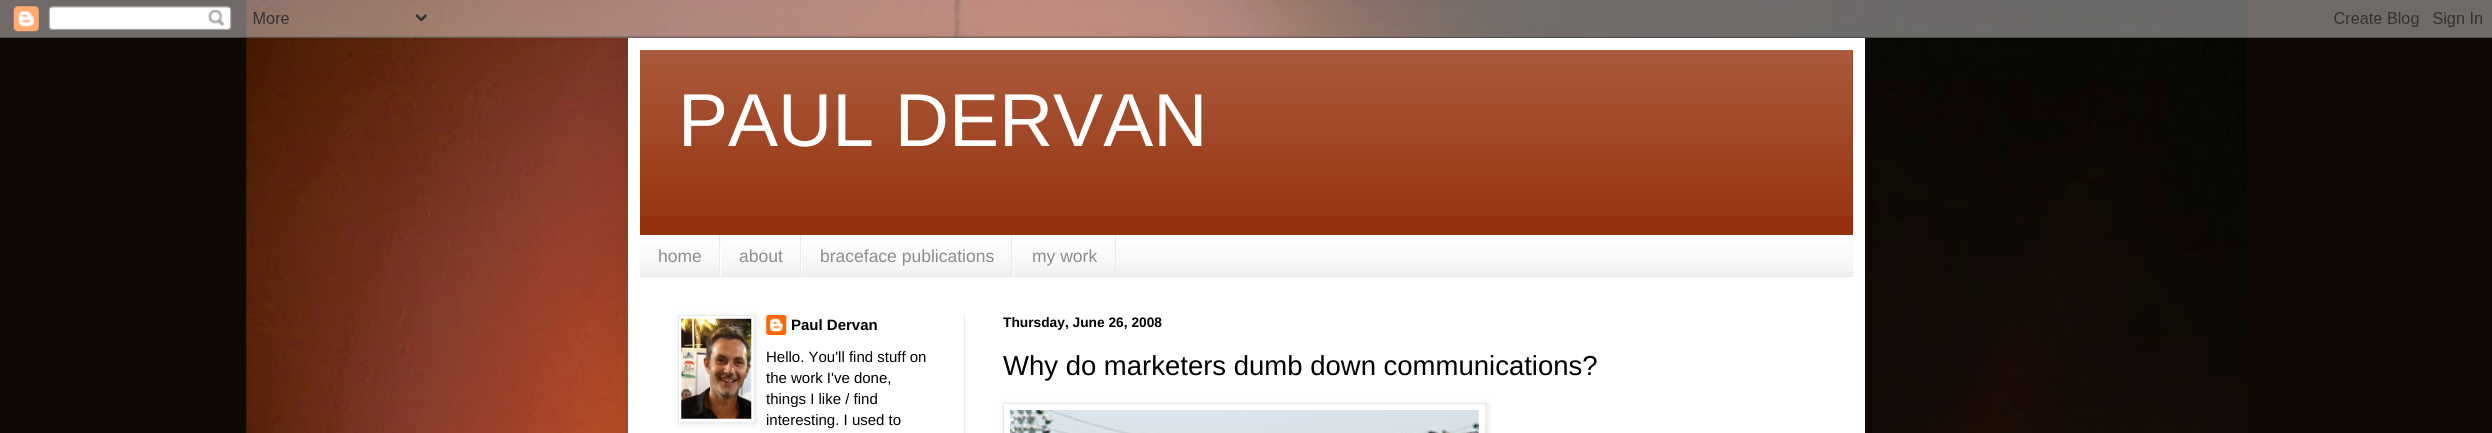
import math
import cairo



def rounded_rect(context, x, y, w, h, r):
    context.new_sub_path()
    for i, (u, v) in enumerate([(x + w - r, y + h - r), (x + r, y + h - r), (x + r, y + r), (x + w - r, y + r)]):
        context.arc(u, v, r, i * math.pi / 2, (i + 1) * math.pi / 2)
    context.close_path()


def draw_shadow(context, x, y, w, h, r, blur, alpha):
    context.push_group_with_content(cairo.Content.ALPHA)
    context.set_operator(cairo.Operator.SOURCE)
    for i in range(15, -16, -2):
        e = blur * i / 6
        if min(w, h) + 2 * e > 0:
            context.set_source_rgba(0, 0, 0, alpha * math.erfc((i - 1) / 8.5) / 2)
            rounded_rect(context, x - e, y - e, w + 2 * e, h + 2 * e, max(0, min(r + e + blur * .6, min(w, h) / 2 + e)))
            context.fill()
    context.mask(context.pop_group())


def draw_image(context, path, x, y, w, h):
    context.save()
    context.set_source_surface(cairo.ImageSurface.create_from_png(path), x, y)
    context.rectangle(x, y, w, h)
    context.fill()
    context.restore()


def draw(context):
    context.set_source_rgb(16 / 255, 8 / 255, 5 / 255)
    context.paint()
    draw_image(context, "images/1.png", 246, 0, 2001, 433)
    context.set_source_rgb(0, 0, 0)
    draw_shadow(context, 628, 38, 1237, 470, 0, 25, 0.15)
    draw_image(context, "images/2.png", 0, 0, 2492, 38)
    context.set_source_rgb(1, 1, 1)
    context.rectangle(628, 38, 1237, 395)
    context.fill()
    context.set_source_rgb(149 / 255, 49 / 255, 12 / 255)
    context.rectangle(640, 50, 1213, 185)
    context.fill()
    draw_image(context, "images/3.png", 640, 50, 1213, 166)
    context.set_source_rgb(240 / 255, 240 / 255, 240 / 255)
    context.rectangle(640, 235, 1213, 41)
    context.fill()
    draw_image(context, "images/4.png", 640, 235, 1213, 36)
    context.set_source_rgb(233 / 255, 233 / 255, 233 / 255)
    context.rectangle(640, 276, 1213, 1)
    context.fill()
    context.rectangle(719, 235, 1, 41)
    context.fill()
    context.rectangle(800, 235, 1, 41)
    context.fill()
    context.set_source_rgb(1, 1, 1)
    context.rectangle(720, 244, 1, 32)
    context.fill()
    context.set_source_rgb(233 / 255, 233 / 255, 233 / 255)
    context.rectangle(1011, 235, 1, 41)
    context.fill()
    context.set_source_rgb(1, 1, 1)
    context.rectangle(801, 244, 1, 32)
    context.fill()
    context.set_source_rgb(233 / 255, 233 / 255, 233 / 255)
    context.rectangle(1115, 235, 1, 41)
    context.fill()
    context.set_source_rgb(1, 1, 1)
    context.rectangle(1013, 244, 1, 32)
    context.fill()
    context.set_source_rgb(233 / 255, 233 / 255, 233 / 255)
    context.rectangle(964, 315, 1, 118)
    context.fill()
    context.set_source_rgb(0, 0, 0)
    draw_shadow(context, 679, 316, 77, 108, 0, 3, 0.1)
    context.set_source_rgb(1, 1, 1)
    context.rectangle(678.5, 315.5, 76, 107)
    context.fill_preserve()
    context.set_source_rgb(233 / 255, 233 / 255, 233 / 255)
    context.set_line_width(1)
    context.stroke()
    draw_image(context, "images/5.png", 681, 318, 71, 101)
    draw_image(context, "images/6.png", 766, 315, 21, 20)
    context.save()
    context.set_fill_rule(cairo.FillRule.EVEN_ODD)
    context.new_path()
    context.move_to(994, 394)
    context.line_to(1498, 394)
    context.line_to(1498, 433)
    context.line_to(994, 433)
    context.close_path()
    context.move_to(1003, 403)
    context.line_to(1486, 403)
    context.line_to(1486, 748)
    context.line_to(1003, 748)
    context.close_path()
    context.clip()
    context.set_source_rgb(0, 0, 0)
    draw_shadow(context, 1004, 404, 484, 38, 0, 3, 0.1)
    context.restore()
    context.rectangle(1003.5, 403.5, 482, 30)
    context.stroke()
    draw_image(context, "images/7.png", 1010, 410, 469, 23)
    context.select_font_face("Liberation Sans")
    context.set_font_size(75)
    context.set_source_rgb(1, 1, 1)
    context.move_to(678, 146)
    context.show_text("PAUL DERVAN")
    context.set_font_size(17.5)
    context.set_source_rgb(140 / 255, 140 / 255, 140 / 255)
    context.move_to(658, 262)
    context.show_text("home")
    context.move_to(739, 262)
    context.show_text("about")
    context.move_to(820, 262)
    context.show_text("braceface publications")
    context.move_to(1032, 262)
    context.show_text("my work")
    context.select_font_face("Liberation Sans", cairo.FontSlant.NORMAL, cairo.FontWeight.BOLD)
    context.set_font_size(15)
    context.set_source_rgb(0, 0, 0)
    context.move_to(791, 330)
    context.show_text("Paul Dervan")
    context.select_font_face("Liberation Sans")
    context.move_to(766, 362)
    context.show_text("Hello. You'll find stuff on")
    context.move_to(766, 383)
    context.show_text("the work I've done,")
    context.move_to(766, 404)
    context.show_text("things I like / find")
    context.move_to(766, 425)
    context.show_text("interesting. I used to")
    context.select_font_face("Liberation Sans", cairo.FontSlant.NORMAL, cairo.FontWeight.BOLD)
    context.set_font_size(13.75)
    context.move_to(1003, 327)
    context.show_text("Thursday, June 26, 2008")
    context.select_font_face("Liberation Sans")
    context.set_font_size(27.5)
    context.move_to(1003, 375)
    context.show_text("Why do marketers dumb down communications?")


surface = cairo.ImageSurface(cairo.Format.RGB24, 2492, 433)
context = cairo.Context(surface)
options = cairo.FontOptions()
options.set_hint_metrics(cairo.HintMetrics.OFF)
options.set_hint_style(cairo.HintStyle.NONE)
context.set_font_options(options)
context.set_miter_limit(4)
draw(context)
surface.write_to_png("out.png")
